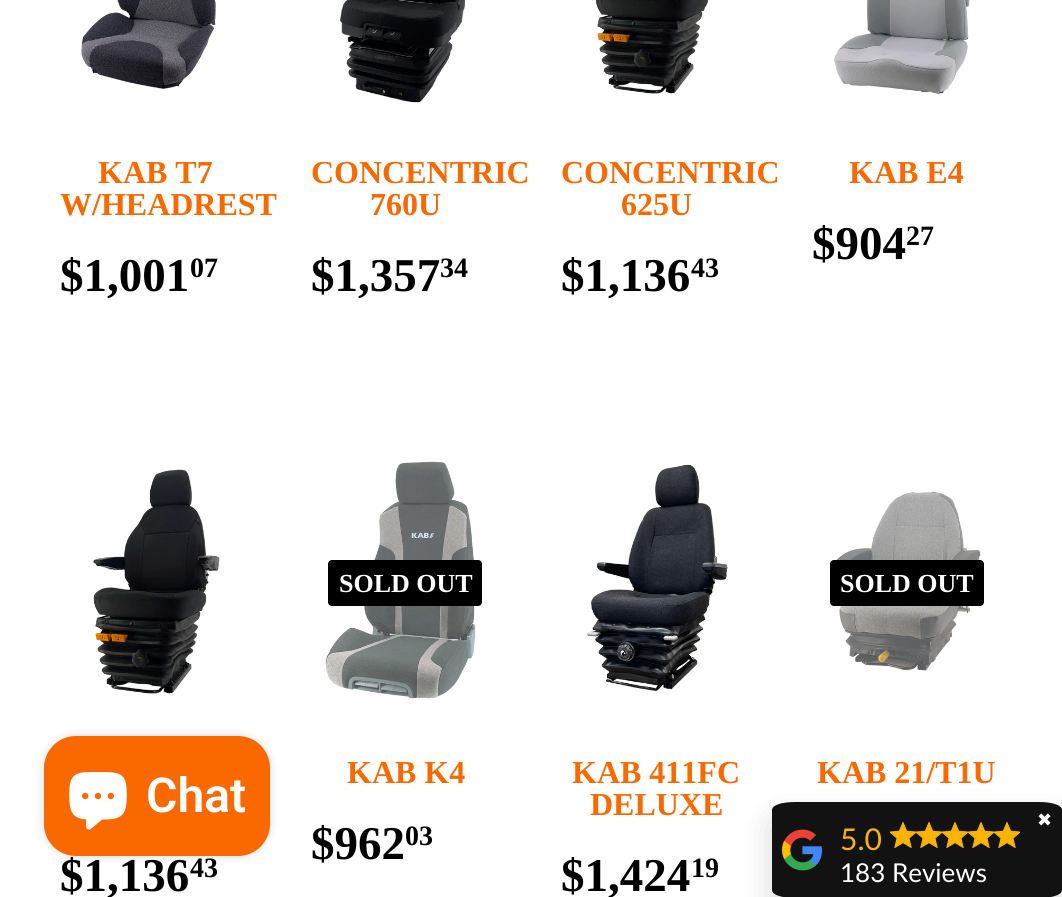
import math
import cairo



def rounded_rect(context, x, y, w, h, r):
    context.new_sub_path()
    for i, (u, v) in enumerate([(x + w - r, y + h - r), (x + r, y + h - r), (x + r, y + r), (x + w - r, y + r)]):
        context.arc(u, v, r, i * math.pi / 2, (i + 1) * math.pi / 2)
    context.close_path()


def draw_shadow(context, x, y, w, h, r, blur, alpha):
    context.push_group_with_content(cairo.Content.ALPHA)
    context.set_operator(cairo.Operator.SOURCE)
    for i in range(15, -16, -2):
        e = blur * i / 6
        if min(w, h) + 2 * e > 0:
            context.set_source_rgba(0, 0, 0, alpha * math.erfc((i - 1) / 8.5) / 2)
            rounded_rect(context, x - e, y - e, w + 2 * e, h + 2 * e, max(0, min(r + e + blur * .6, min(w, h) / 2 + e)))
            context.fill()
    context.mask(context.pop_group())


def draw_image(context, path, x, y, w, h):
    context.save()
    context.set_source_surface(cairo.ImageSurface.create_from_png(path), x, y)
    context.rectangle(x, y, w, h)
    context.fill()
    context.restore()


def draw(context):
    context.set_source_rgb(1, 1, 1)
    context.paint()
    draw_image(context, "images/1.png", 81, 0, 135, 89)
    draw_image(context, "images/2.png", 340, 0, 125, 103)
    draw_image(context, "images/3.png", 595, 0, 113, 94)
    draw_image(context, "images/4.png", 834, 0, 136, 96)
    draw_image(context, "images/5.png", 325, 461, 153, 239)
    context.set_source_rgb(0, 0, 0)
    rounded_rect(context, 328, 560, 154, 46, 4)
    context.fill()
    draw_image(context, "images/6.png", 835, 490, 146, 182)
    rounded_rect(context, 830, 560, 154, 46, 4)
    context.fill()
    draw_image(context, "images/7.png", 93, 469, 127, 225)
    draw_image(context, "images/8.png", 587, 464, 141, 227)
    context.set_source_rgb(0, 0, 0)
    draw_shadow(context, 44, 736, 226, 120, 32, 5, 0.15)
    context.set_source_rgb(250 / 255, 104 / 255, 0)
    rounded_rect(context, 44, 736, 226, 120, 32)
    context.fill()
    draw_image(context, "images/9.png", 69, 772, 58, 58)
    context.set_source_rgb(0, 0, 0)
    draw_shadow(context, 772, 818, 290, 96, 8, 16, 0.15)
    context.set_source_rgb(18 / 255, 18 / 255, 18 / 255)
    context.new_path()
    context.move_to(795, 802)
    context.line_to(1039, 802)
    context.curve_to(1052, 802, 1062, 805, 1062, 810)
    context.line_to(1062, 890)
    context.curve_to(1062, 895, 1052, 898, 1039, 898)
    context.line_to(795, 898)
    context.curve_to(782, 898, 772, 895, 772, 890)
    context.line_to(772, 810)
    context.curve_to(772, 805, 782, 802, 795, 802)
    context.close_path()
    context.fill()
    draw_image(context, "images/10.png", 782, 829, 40, 42)
    draw_image(context, "images/11.png", 890, 822, 26, 26)
    draw_image(context, "images/11.png", 916, 822, 26, 26)
    draw_image(context, "images/11.png", 942, 822, 26, 26)
    draw_image(context, "images/11.png", 968, 822, 26, 26)
    draw_image(context, "images/11.png", 994, 822, 26, 26)
    context.select_font_face("Liberation Serif", cairo.FontSlant.NORMAL, cairo.FontWeight.BOLD)
    context.set_font_size(32)
    context.set_source_rgb(250 / 255, 104 / 255, 0)
    context.move_to(98, 183)
    context.show_text("KAB T7")
    context.move_to(60, 215)
    context.show_text("W/HEADREST")
    context.set_font_size(47)
    context.set_source_rgb(0, 0, 0)
    context.move_to(60, 291)
    context.show_text("$1,001")
    context.set_font_size(28)
    context.move_to(190, 277)
    context.show_text("07")
    context.set_font_size(32)
    context.set_source_rgb(250 / 255, 104 / 255, 0)
    context.move_to(311, 183)
    context.show_text("CONCENTRIC")
    context.move_to(370, 215)
    context.show_text("760U")
    context.set_font_size(47)
    context.set_source_rgb(0, 0, 0)
    context.move_to(311, 291)
    context.show_text("$1,357")
    context.set_font_size(28)
    context.move_to(440, 277)
    context.show_text("34")
    context.set_font_size(32)
    context.set_source_rgb(250 / 255, 104 / 255, 0)
    context.move_to(561, 183)
    context.show_text("CONCENTRIC")
    context.move_to(621, 215)
    context.show_text("625U")
    context.set_font_size(47)
    context.set_source_rgb(0, 0, 0)
    context.move_to(561, 291)
    context.show_text("$1,136")
    context.set_font_size(28)
    context.move_to(691, 277)
    context.show_text("43")
    context.set_font_size(32)
    context.set_source_rgb(250 / 255, 104 / 255, 0)
    context.move_to(849, 183)
    context.show_text("KAB E4")
    context.set_font_size(47)
    context.set_source_rgb(0, 0, 0)
    context.move_to(812, 259)
    context.show_text("$904")
    context.set_font_size(28)
    context.move_to(906, 245)
    context.show_text("27")
    context.set_font_size(26)
    context.set_source_rgb(1, 1, 1)
    context.move_to(339, 592)
    context.show_text("SOLD OUT")
    context.set_font_size(32)
    context.set_source_rgb(250 / 255, 104 / 255, 0)
    context.move_to(347, 783)
    context.show_text("KAB K4")
    context.set_font_size(47)
    context.set_source_rgb(0, 0, 0)
    context.move_to(311, 859)
    context.show_text("$962")
    context.set_font_size(28)
    context.move_to(405, 845)
    context.show_text("03")
    context.set_font_size(26)
    context.set_source_rgb(1, 1, 1)
    context.move_to(840, 592)
    context.show_text("SOLD OUT")
    context.set_font_size(32)
    context.set_source_rgb(250 / 255, 104 / 255, 0)
    context.move_to(817, 783)
    context.show_text("KAB 21/T1U")
    context.set_font_size(47)
    context.set_source_rgb(0, 0, 0)
    context.move_to(60, 891)
    context.show_text("$1,136")
    context.set_font_size(28)
    context.move_to(190, 877)
    context.show_text("43")
    context.set_font_size(32)
    context.set_source_rgb(250 / 255, 104 / 255, 0)
    context.move_to(572, 783)
    context.show_text("KAB 411FC")
    context.move_to(590, 815)
    context.show_text("DELUXE")
    context.set_font_size(47)
    context.set_source_rgb(0, 0, 0)
    context.move_to(561, 891)
    context.show_text("$1,424")
    context.set_font_size(28)
    context.move_to(691, 877)
    context.show_text("19")
    context.select_font_face("Roboto SemiBold")
    context.set_font_size(48)
    context.set_source_rgb(1, 1, 1)
    context.move_to(146, 812)
    context.show_text("Chat")
    context.select_font_face("DejaVu Sans")
    context.set_font_size(18)
    context.move_to(1037, 826)
    context.show_text("✖")
    context.select_font_face("Lato")
    context.set_font_size(30)
    context.set_source_rgb(249 / 255, 180 / 255, 3 / 255)
    context.move_to(840, 850)
    context.show_text("5.0")
    context.set_font_size(26)
    context.set_source_rgb(1, 1, 1)
    context.move_to(840, 882)
    context.show_text("183 Reviews")


surface = cairo.ImageSurface(cairo.Format.RGB24, 1062, 897)
context = cairo.Context(surface)
options = cairo.FontOptions()
options.set_hint_metrics(cairo.HintMetrics.OFF)
options.set_hint_style(cairo.HintStyle.NONE)
context.set_font_options(options)
context.set_miter_limit(4)
draw(context)
surface.write_to_png("out.png")
